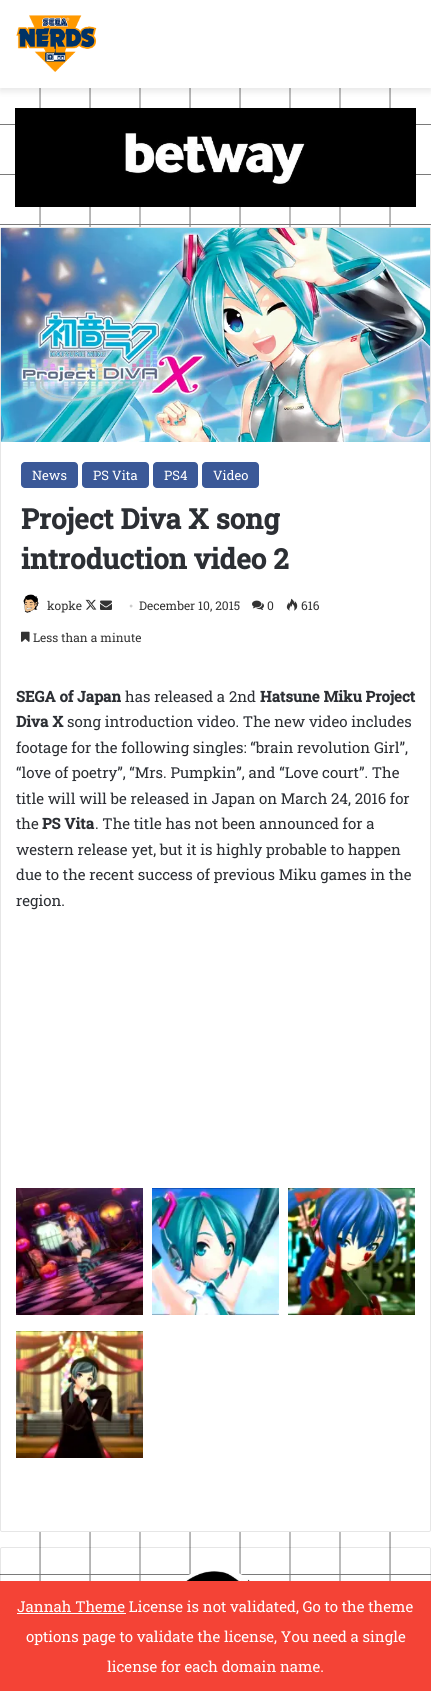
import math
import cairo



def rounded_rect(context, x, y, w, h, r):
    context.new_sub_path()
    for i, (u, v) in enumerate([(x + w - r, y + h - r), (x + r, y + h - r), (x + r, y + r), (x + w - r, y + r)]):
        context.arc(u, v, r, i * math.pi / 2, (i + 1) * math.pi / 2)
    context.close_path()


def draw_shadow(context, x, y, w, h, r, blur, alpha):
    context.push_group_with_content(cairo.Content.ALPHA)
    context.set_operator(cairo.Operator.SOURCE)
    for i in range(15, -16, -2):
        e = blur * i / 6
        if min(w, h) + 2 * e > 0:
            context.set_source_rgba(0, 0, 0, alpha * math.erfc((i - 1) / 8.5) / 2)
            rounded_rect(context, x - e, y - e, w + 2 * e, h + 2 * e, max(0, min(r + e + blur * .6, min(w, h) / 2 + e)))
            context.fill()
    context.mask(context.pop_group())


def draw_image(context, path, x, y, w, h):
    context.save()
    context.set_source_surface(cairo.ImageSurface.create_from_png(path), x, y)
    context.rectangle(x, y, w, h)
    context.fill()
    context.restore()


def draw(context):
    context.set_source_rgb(1, 1, 1)
    context.paint()
    draw_image(context, "images/1.png", 0, 88, 431, 1493)
    context.set_source_rgb(0, 0, 0)
    draw_shadow(context, 0, 3, 431, 88, 0, 3.5, 0.1)
    context.set_source_rgb(1, 1, 1)
    context.rectangle(0, 0, 431, 88)
    context.fill()
    draw_image(context, "images/2.png", 16, 15, 81, 57)
    draw_image(context, "images/3.png", 15, 108, 401, 99)
    rounded_rect(context, 0.5, 227.5, 430, 1304, 1.5)
    context.fill_preserve()
    context.set_source_rgb(230 / 255, 230 / 255, 230 / 255)
    context.set_line_width(1)
    context.stroke()
    draw_image(context, "images/4.png", 1, 228, 429, 214)
    context.set_source_rgb(59 / 255, 89 / 255, 152 / 255)
    rounded_rect(context, 21, 462, 57, 26, 4)
    context.fill()
    rounded_rect(context, 82, 462, 67, 26, 4)
    context.fill()
    rounded_rect(context, 153, 462, 45, 26, 4)
    context.fill()
    rounded_rect(context, 202, 462, 57, 26, 4)
    context.fill()
    draw_image(context, "images/5.png", 23, 594, 16, 19)
    draw_image(context, "images/6.png", 85, 599, 12, 11)
    draw_image(context, "images/7.png", 100, 600, 12, 10)
    draw_image(context, "images/8.png", 252, 600, 12, 10)
    draw_image(context, "images/9.png", 286, 598, 12, 13)
    draw_image(context, "images/10.png", 21, 631, 9, 11)
    draw_image(context, "images/11.png", 16, 1188, 127, 127)
    draw_image(context, "images/12.png", 152, 1188, 127, 127)
    draw_image(context, "images/13.png", 288, 1188, 127, 127)
    draw_image(context, "images/14.png", 16, 1331, 127, 127)
    rounded_rect(context, 0.5, 1547.5, 430, 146, 1.5)
    context.set_source_rgba(0, 0, 0, 0.1)
    context.stroke()
    draw_image(context, "images/15.png", 186, 1571, 64, 10)
    context.set_source_rgb(244 / 255, 67 / 255, 54 / 255)
    context.rectangle(0, 1581, 431, 110)
    context.fill()
    context.set_source_rgb(1, 1, 1)
    context.rectangle(17, 1613, 109, 1)
    context.fill()
    context.select_font_face("Roboto Slab")
    context.set_font_size(13)
    context.move_to(32, 480)
    context.show_text("News")
    context.move_to(93, 480)
    context.show_text("PS Vita")
    context.move_to(164, 480)
    context.show_text("PS4")
    context.move_to(213, 480)
    context.show_text("Video")
    context.select_font_face("Roboto Slab", cairo.FontSlant.NORMAL, cairo.FontWeight.BOLD)
    context.set_font_size(28)
    context.set_source_rgb(44 / 255, 47 / 255, 52 / 255)
    context.move_to(21, 529)
    context.show_text("Project Diva X song")
    context.move_to(21, 569)
    context.show_text("introduction video 2")
    context.select_font_face("Roboto Slab")
    context.set_font_size(12)
    context.set_source_rgb(51 / 255, 51 / 255, 51 / 255)
    context.move_to(47, 610)
    context.show_text("kopke")
    context.select_font_face("Liberation Serif")
    context.set_source_rgb(204 / 255, 204 / 255, 204 / 255)
    context.move_to(129, 610)
    context.show_text("•")
    context.select_font_face("Roboto Slab")
    context.set_source_rgb(51 / 255, 51 / 255, 51 / 255)
    context.move_to(139, 610)
    context.show_text("December 10, 2015")
    context.move_to(267, 610)
    context.show_text("0")
    context.move_to(301, 610)
    context.show_text("616")
    context.move_to(33, 642)
    context.show_text("Less than a minute")
    context.select_font_face("Roboto Slab", cairo.FontSlant.NORMAL, cairo.FontWeight.BOLD)
    context.set_font_size(15)
    context.set_source_rgb(44 / 255, 47 / 255, 52 / 255)
    context.move_to(16, 702)
    context.show_text("SEGA of Japan")
    context.select_font_face("Roboto Slab")
    context.move_to(125, 702)
    context.show_text("has released a 2nd")
    context.select_font_face("Roboto Slab", cairo.FontSlant.NORMAL, cairo.FontWeight.BOLD)
    context.move_to(260, 702)
    context.show_text("Hatsune Miku Project")
    context.move_to(16, 727)
    context.show_text("Diva X")
    context.select_font_face("Roboto Slab")
    context.move_to(67, 727)
    context.show_text("song introduction video. The new video includes")
    context.move_to(16, 753)
    context.show_text("footage for the following singles: “brain revolution Girl”,")
    context.move_to(16, 778)
    context.show_text("“love of poetry”, “Mrs. Pumpkin”, and “Love court”. The")
    context.move_to(16, 804)
    context.show_text("title will will be released in Japan on March 24, 2016 for")
    context.move_to(16, 829)
    context.show_text("the")
    context.select_font_face("Roboto Slab", cairo.FontSlant.NORMAL, cairo.FontWeight.BOLD)
    context.move_to(42, 829)
    context.show_text("PS Vita")
    context.select_font_face("Roboto Slab")
    context.move_to(95, 829)
    context.show_text(". The title has not been announced for a")
    context.move_to(16, 855)
    context.show_text("western release yet, but it is highly probable to happen")
    context.move_to(16, 880)
    context.show_text("due to the recent success of previous Miku games in the")
    context.move_to(16, 906)
    context.show_text("region.")
    context.set_source_rgb(1, 1, 1)
    context.move_to(17, 1612)
    context.show_text("Jannah Theme License is not validated, Go to the theme")
    context.move_to(26, 1642)
    context.show_text("options page to validate the license, You need a single")
    context.move_to(107, 1672)
    context.show_text("license for each domain name.")


surface = cairo.ImageSurface(cairo.Format.RGB24, 431, 1691)
context = cairo.Context(surface)
options = cairo.FontOptions()
options.set_hint_metrics(cairo.HintMetrics.OFF)
options.set_hint_style(cairo.HintStyle.NONE)
context.set_font_options(options)
context.set_miter_limit(4)
draw(context)
surface.write_to_png("out.png")
